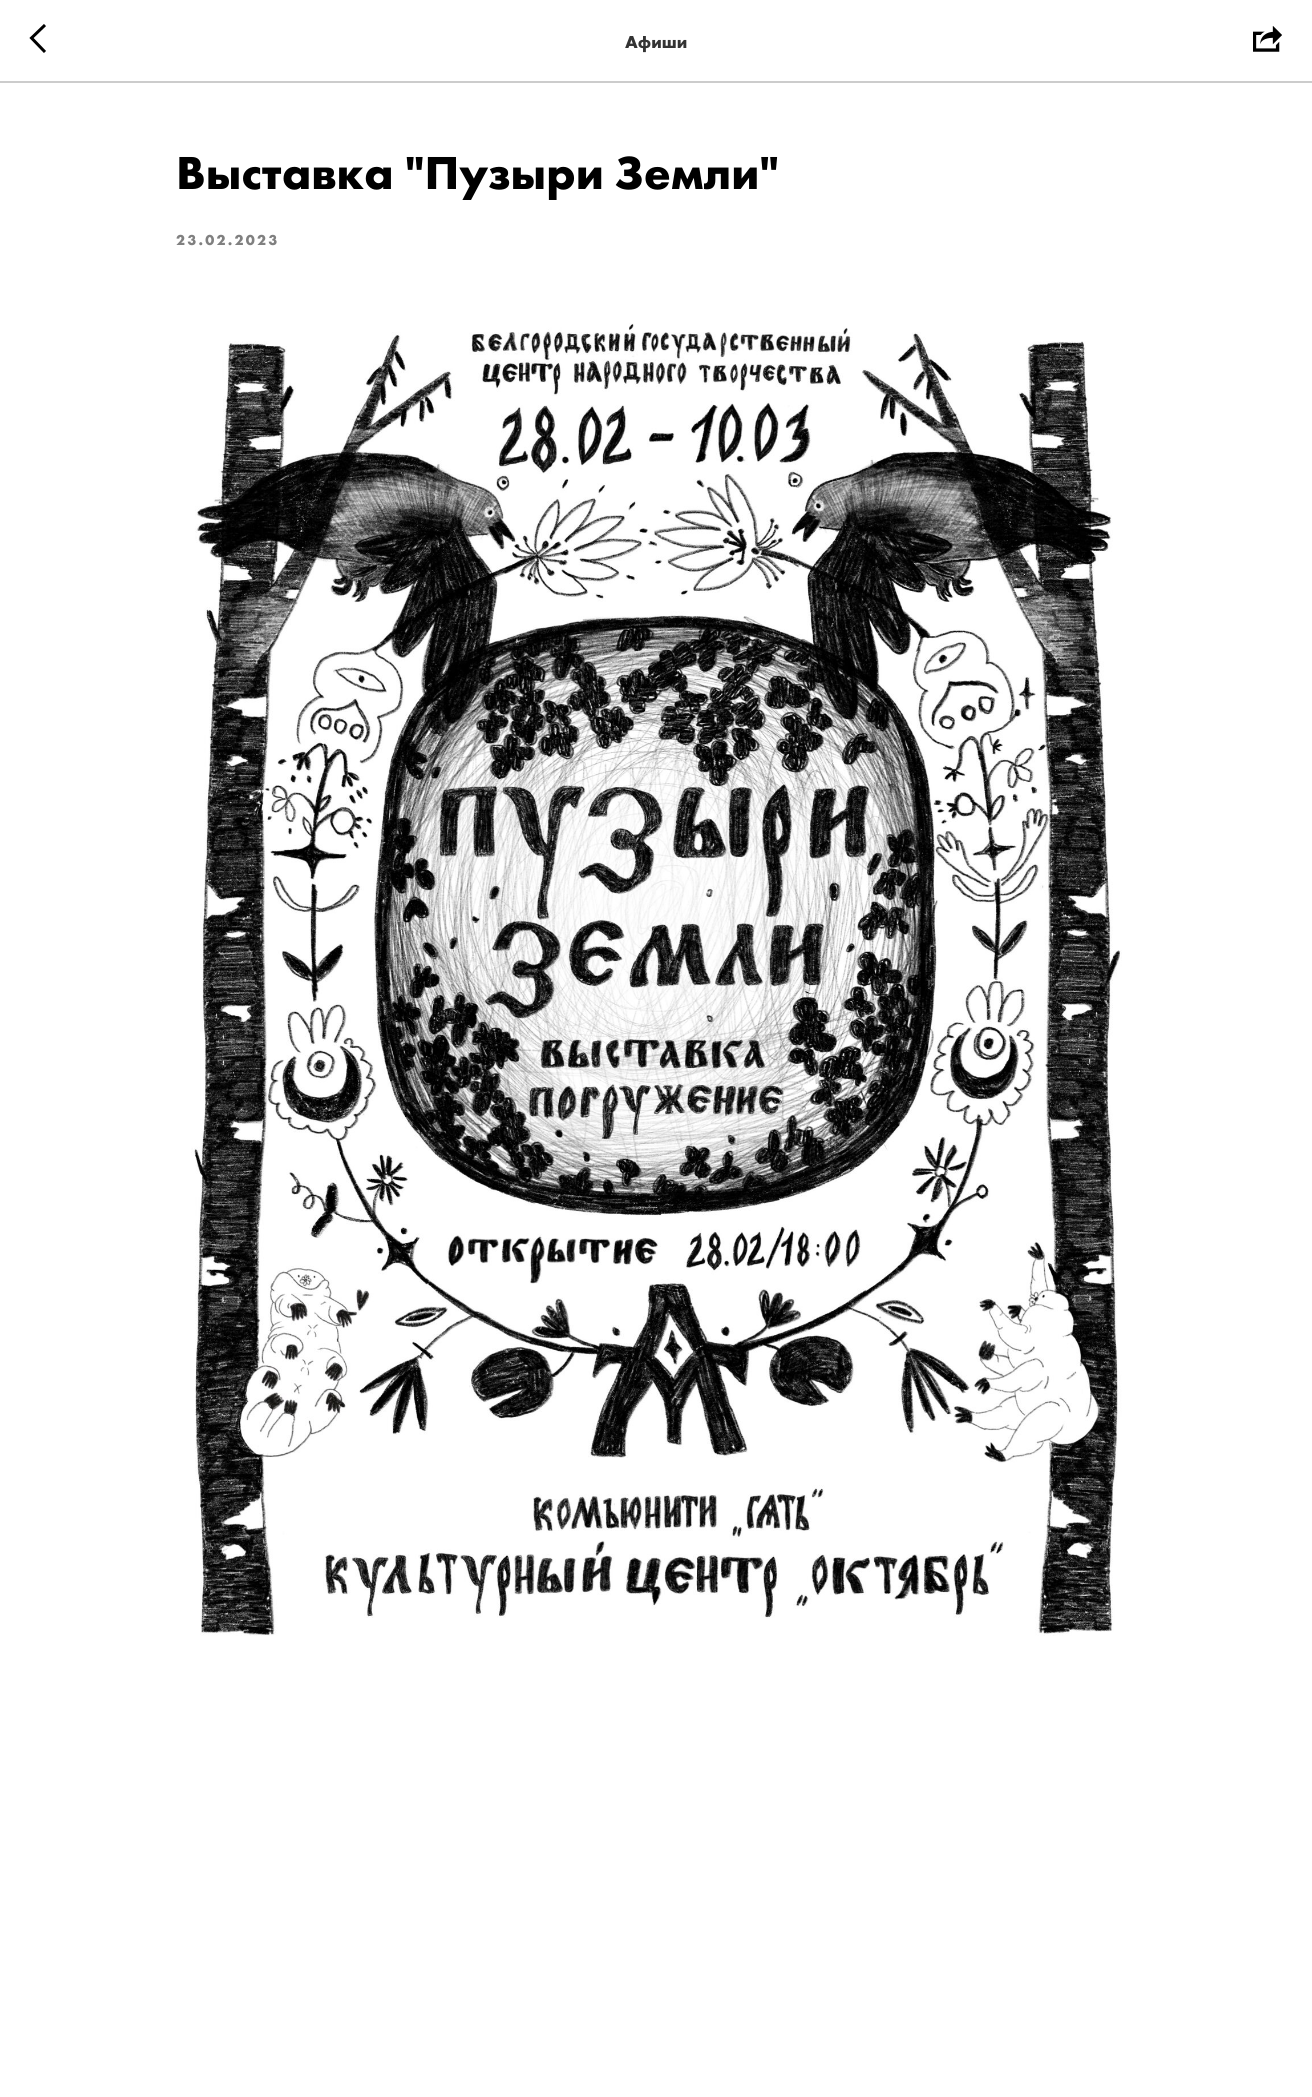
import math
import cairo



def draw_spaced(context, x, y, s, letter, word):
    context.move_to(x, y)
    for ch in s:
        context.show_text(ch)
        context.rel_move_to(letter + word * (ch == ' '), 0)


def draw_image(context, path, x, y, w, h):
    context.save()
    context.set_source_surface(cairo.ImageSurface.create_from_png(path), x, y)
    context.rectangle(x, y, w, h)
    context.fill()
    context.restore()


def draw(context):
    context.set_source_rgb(1, 1, 1)
    context.paint()
    context.set_source_rgb(204 / 255, 204 / 255, 204 / 255)
    context.rectangle(0, 81, 1312, 2)
    context.fill()
    context.new_path()
    context.move_to(45, 52)
    context.line_to(31.5, 38)
    context.line_to(45, 25)
    context.set_source_rgb(0, 0, 0)
    context.set_line_width(3)
    context.stroke()
    draw_image(context, "images/1.png", 1253, 26, 29, 26)
    draw_image(context, "images/2.png", 191, 323, 931, 1313)
    context.select_font_face("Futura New", cairo.FontSlant.NORMAL, cairo.FontWeight.BOLD)
    context.set_font_size(18)
    context.set_source_rgb(51 / 255, 51 / 255, 51 / 255)
    context.move_to(625, 48)
    context.show_text("Афиши")
    context.set_font_size(48)
    context.set_source_rgb(0, 0, 0)
    context.move_to(176, 189)
    context.show_text("Выставка \"Пузыри Земли\"")
    context.set_font_size(15)
    context.set_source_rgb(128 / 255, 128 / 255, 128 / 255)
    draw_spaced(context, 176, 245, "23.02.2023", 2.25, 0)


surface = cairo.ImageSurface(cairo.Format.RGB24, 1312, 2097)
context = cairo.Context(surface)
options = cairo.FontOptions()
options.set_hint_metrics(cairo.HintMetrics.OFF)
options.set_hint_style(cairo.HintStyle.NONE)
context.set_font_options(options)
context.set_miter_limit(4)
draw(context)
surface.write_to_png("out.png")
